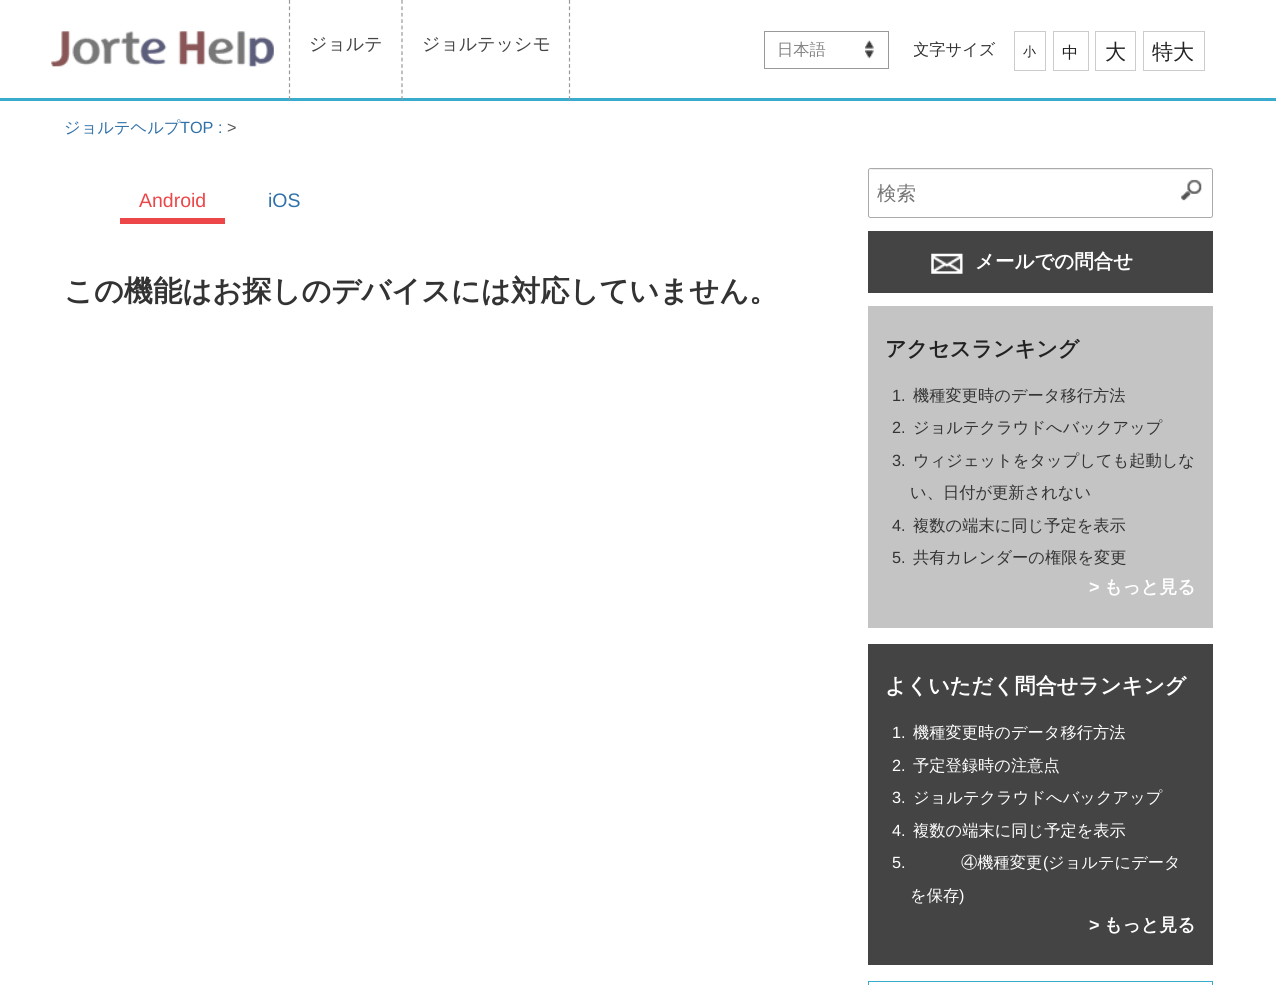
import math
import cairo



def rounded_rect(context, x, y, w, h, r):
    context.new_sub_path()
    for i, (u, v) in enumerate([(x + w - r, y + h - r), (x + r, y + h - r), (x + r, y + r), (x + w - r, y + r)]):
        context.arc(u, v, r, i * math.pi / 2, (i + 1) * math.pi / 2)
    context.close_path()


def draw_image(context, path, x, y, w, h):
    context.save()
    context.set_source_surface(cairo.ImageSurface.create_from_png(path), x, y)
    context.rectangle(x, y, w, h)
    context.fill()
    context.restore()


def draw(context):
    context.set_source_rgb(1, 1, 1)
    context.paint()
    context.set_source_rgb(57 / 255, 171 / 255, 204 / 255)
    context.rectangle(0, 98, 1276, 3)
    context.fill()
    draw_image(context, "images/1.png", 51, 31, 223, 36)
    context.new_path()
    context.move_to(402, 0)
    context.line_to(402, 100)
    context.set_source_rgb(153 / 255, 153 / 255, 153 / 255)
    context.set_line_width(1.2)
    context.set_dash([3.75, 2.66])
    context.stroke()
    context.new_path()
    context.move_to(289.5, 0)
    context.line_to(289.5, 100)
    context.stroke()
    context.new_path()
    context.move_to(569.5, 0)
    context.line_to(569.5, 100)
    context.stroke()
    draw_image(context, "images/2.png", 865, 40, 9, 19)
    context.rectangle(764.5, 31.5, 124, 37)
    context.set_line_width(1)
    context.set_dash([])
    context.stroke()
    context.rectangle(1014.5, 31.5, 31, 39)
    context.set_source_rgb(204 / 255, 204 / 255, 204 / 255)
    context.stroke()
    context.rectangle(1053.5, 31.5, 35, 39)
    context.stroke()
    context.rectangle(1095.5, 31.5, 40, 39)
    context.stroke()
    context.rectangle(1143.5, 31.5, 61, 39)
    context.stroke()
    context.set_source_rgb(237 / 255, 70 / 255, 72 / 255)
    context.rectangle(120, 218, 105, 6)
    context.fill()
    rounded_rect(context, 868.5, 168.5, 344, 49, 2)
    context.set_source_rgb(170 / 255, 170 / 255, 170 / 255)
    context.stroke()
    context.set_source_rgb(236 / 255, 236 / 255, 236 / 255)
    context.new_path()
    context.move_to(872, 170)
    context.line_to(1208, 170)
    context.curve_to(1210, 170, 1211, 172, 1211, 174)
    context.line_to(1211, 173)
    context.curve_to(1211, 171, 1209, 169, 1207, 169)
    context.line_to(873, 169)
    context.curve_to(871, 169, 869, 171, 869, 173)
    context.line_to(869, 174)
    context.curve_to(869, 172, 870, 170, 872, 170)
    context.close_path()
    context.fill()
    draw_image(context, "images/3.png", 1181, 179, 21, 22)
    context.set_source_rgb(68 / 255, 68 / 255, 68 / 255)
    context.rectangle(868, 231, 345, 62)
    context.fill()
    draw_image(context, "images/4.png", 931, 253, 32, 21)
    context.set_source_rgb(196 / 255, 196 / 255, 196 / 255)
    context.rectangle(868, 306, 345, 322)
    context.fill()
    context.set_source_rgb(68 / 255, 68 / 255, 68 / 255)
    context.rectangle(868, 644, 345, 321)
    context.fill()
    context.rectangle(868.5, 981.5, 344, 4)
    context.set_source_rgb(57 / 255, 171 / 255, 204 / 255)
    context.stroke()
    context.select_font_face("WenQuanYi Zen Hei Medium")
    context.set_font_size(18)
    context.set_source_rgb(68 / 255, 68 / 255, 68 / 255)
    context.move_to(309, 50)
    context.show_text("ジョルテ")
    context.move_to(422, 50)
    context.show_text("ジョルテッシモ")
    context.set_font_size(16.25)
    context.set_source_rgb(131 / 255, 131 / 255, 131 / 255)
    context.move_to(777, 55)
    context.show_text("日本語")
    context.save()
    context.rectangle(914, 31, 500, 40)
    context.clip()
    context.set_source_rgb(51 / 255, 51 / 255, 51 / 255)
    context.move_to(913, 55)
    context.show_text("文字サイズ")
    context.restore()
    context.set_font_size(13)
    context.set_source_rgb(34 / 255, 34 / 255, 34 / 255)
    context.move_to(1023, 56)
    context.show_text("小")
    context.set_font_size(16.25)
    context.move_to(1062, 58)
    context.show_text("中")
    context.set_font_size(21.1)
    context.move_to(1105, 59)
    context.show_text("大")
    context.move_to(1152, 59)
    context.show_text("特大")
    context.set_font_size(16.25)
    context.set_source_rgb(48 / 255, 113 / 255, 169 / 255)
    context.move_to(64, 133)
    context.show_text("ジョルテヘルプ")
    context.select_font_face("Liberation Sans")
    context.move_to(180, 133)
    context.show_text("TOP :")
    context.set_source_rgb(85 / 255, 85 / 255, 85 / 255)
    context.move_to(227, 133)
    context.show_text(">")
    context.set_font_size(19.5)
    context.set_source_rgb(237 / 255, 70 / 255, 72 / 255)
    context.move_to(139, 207)
    context.show_text("Android")
    context.set_source_rgb(48 / 255, 113 / 255, 169 / 255)
    context.move_to(268, 207)
    context.show_text("iOS")
    context.select_font_face("WenQuanYi Zen Hei", cairo.FontSlant.NORMAL, cairo.FontWeight.BOLD)
    context.set_font_size(29.25)
    context.set_source_rgb(51 / 255, 51 / 255, 51 / 255)
    context.move_to(64, 301)
    context.show_text("この機能はお探しのデバイスには対応していません。")
    context.select_font_face("WenQuanYi Zen Hei Medium")
    context.set_font_size(19.5)
    context.set_source_rgb(117 / 255, 117 / 255, 117 / 255)
    context.move_to(877, 200)
    context.show_text("検索")
    context.select_font_face("WenQuanYi Zen Hei", cairo.FontSlant.NORMAL, cairo.FontWeight.BOLD)
    context.set_source_rgb(1, 1, 1)
    context.move_to(975, 268)
    context.show_text("メールでの問合せ")
    context.set_font_size(21.1)
    context.set_source_rgb(34 / 255, 34 / 255, 34 / 255)
    context.move_to(885, 356)
    context.show_text("アクセスランキング")
    context.select_font_face("Liberation Sans")
    context.set_font_size(16.25)
    context.set_source_rgb(51 / 255, 51 / 255, 51 / 255)
    context.move_to(892, 401)
    context.show_text("1.")
    context.select_font_face("WenQuanYi Zen Hei Medium")
    context.move_to(913, 401)
    context.show_text("機種変更時のデータ移行方法")
    context.select_font_face("Liberation Sans")
    context.move_to(892, 433)
    context.show_text("2.")
    context.select_font_face("WenQuanYi Zen Hei Medium")
    context.move_to(913, 433)
    context.show_text("ジョルテクラウドへバックアップ")
    context.select_font_face("Liberation Sans")
    context.move_to(892, 466)
    context.show_text("3.")
    context.select_font_face("WenQuanYi Zen Hei Medium")
    context.move_to(913, 466)
    context.show_text("ウィジェットをタップしても起動しな")
    context.move_to(910, 498)
    context.show_text("い、日付が更新されない")
    context.select_font_face("Liberation Sans")
    context.move_to(892, 531)
    context.show_text("4.")
    context.select_font_face("WenQuanYi Zen Hei Medium")
    context.move_to(913, 531)
    context.show_text("複数の端末に同じ予定を表示")
    context.select_font_face("Liberation Sans")
    context.move_to(892, 563)
    context.show_text("5.")
    context.select_font_face("WenQuanYi Zen Hei Medium")
    context.move_to(913, 563)
    context.show_text("共有カレンダーの権限を変更")
    context.select_font_face("Liberation Sans", cairo.FontSlant.NORMAL, cairo.FontWeight.BOLD)
    context.set_font_size(18)
    context.set_source_rgb(1, 1, 1)
    context.move_to(1089, 593)
    context.show_text(">")
    context.select_font_face("WenQuanYi Zen Hei", cairo.FontSlant.NORMAL, cairo.FontWeight.BOLD)
    context.move_to(1104, 593)
    context.show_text("もっと見る")
    context.set_font_size(21.1)
    context.move_to(885, 693)
    context.show_text("よくいただく問合せランキング")
    context.select_font_face("Liberation Sans")
    context.set_font_size(16.25)
    context.move_to(892, 738)
    context.show_text("1.")
    context.select_font_face("WenQuanYi Zen Hei Medium")
    context.move_to(913, 738)
    context.show_text("機種変更時のデータ移行方法")
    context.select_font_face("Liberation Sans")
    context.move_to(892, 771)
    context.show_text("2.")
    context.select_font_face("WenQuanYi Zen Hei Medium")
    context.move_to(913, 771)
    context.show_text("予定登録時の注意点")
    context.select_font_face("Liberation Sans")
    context.move_to(892, 803)
    context.show_text("3.")
    context.select_font_face("WenQuanYi Zen Hei Medium")
    context.move_to(913, 803)
    context.show_text("ジョルテクラウドへバックアップ")
    context.select_font_face("Liberation Sans")
    context.move_to(892, 836)
    context.show_text("4.")
    context.select_font_face("WenQuanYi Zen Hei Medium")
    context.move_to(913, 836)
    context.show_text("複数の端末に同じ予定を表示")
    context.select_font_face("Liberation Sans")
    context.move_to(892, 868)
    context.show_text("5.")
    context.select_font_face("WenQuanYi Zen Hei Medium")
    context.move_to(961, 868)
    context.show_text("④機種変更")
    context.select_font_face("Liberation Sans")
    context.move_to(1043, 868)
    context.show_text("(")
    context.select_font_face("WenQuanYi Zen Hei Medium")
    context.move_to(1048, 868)
    context.show_text("ジョルテにデータ")
    context.move_to(910, 901)
    context.show_text("を保存")
    context.select_font_face("Liberation Sans")
    context.move_to(959, 901)
    context.show_text(")")
    context.select_font_face("Liberation Sans", cairo.FontSlant.NORMAL, cairo.FontWeight.BOLD)
    context.set_font_size(18)
    context.move_to(1089, 931)
    context.show_text(">")
    context.select_font_face("WenQuanYi Zen Hei", cairo.FontSlant.NORMAL, cairo.FontWeight.BOLD)
    context.move_to(1104, 931)
    context.show_text("もっと見る")


surface = cairo.ImageSurface(cairo.Format.RGB24, 1276, 985)
context = cairo.Context(surface)
options = cairo.FontOptions()
options.set_hint_metrics(cairo.HintMetrics.OFF)
options.set_hint_style(cairo.HintStyle.NONE)
context.set_font_options(options)
context.set_miter_limit(4)
draw(context)
surface.write_to_png("out.png")
